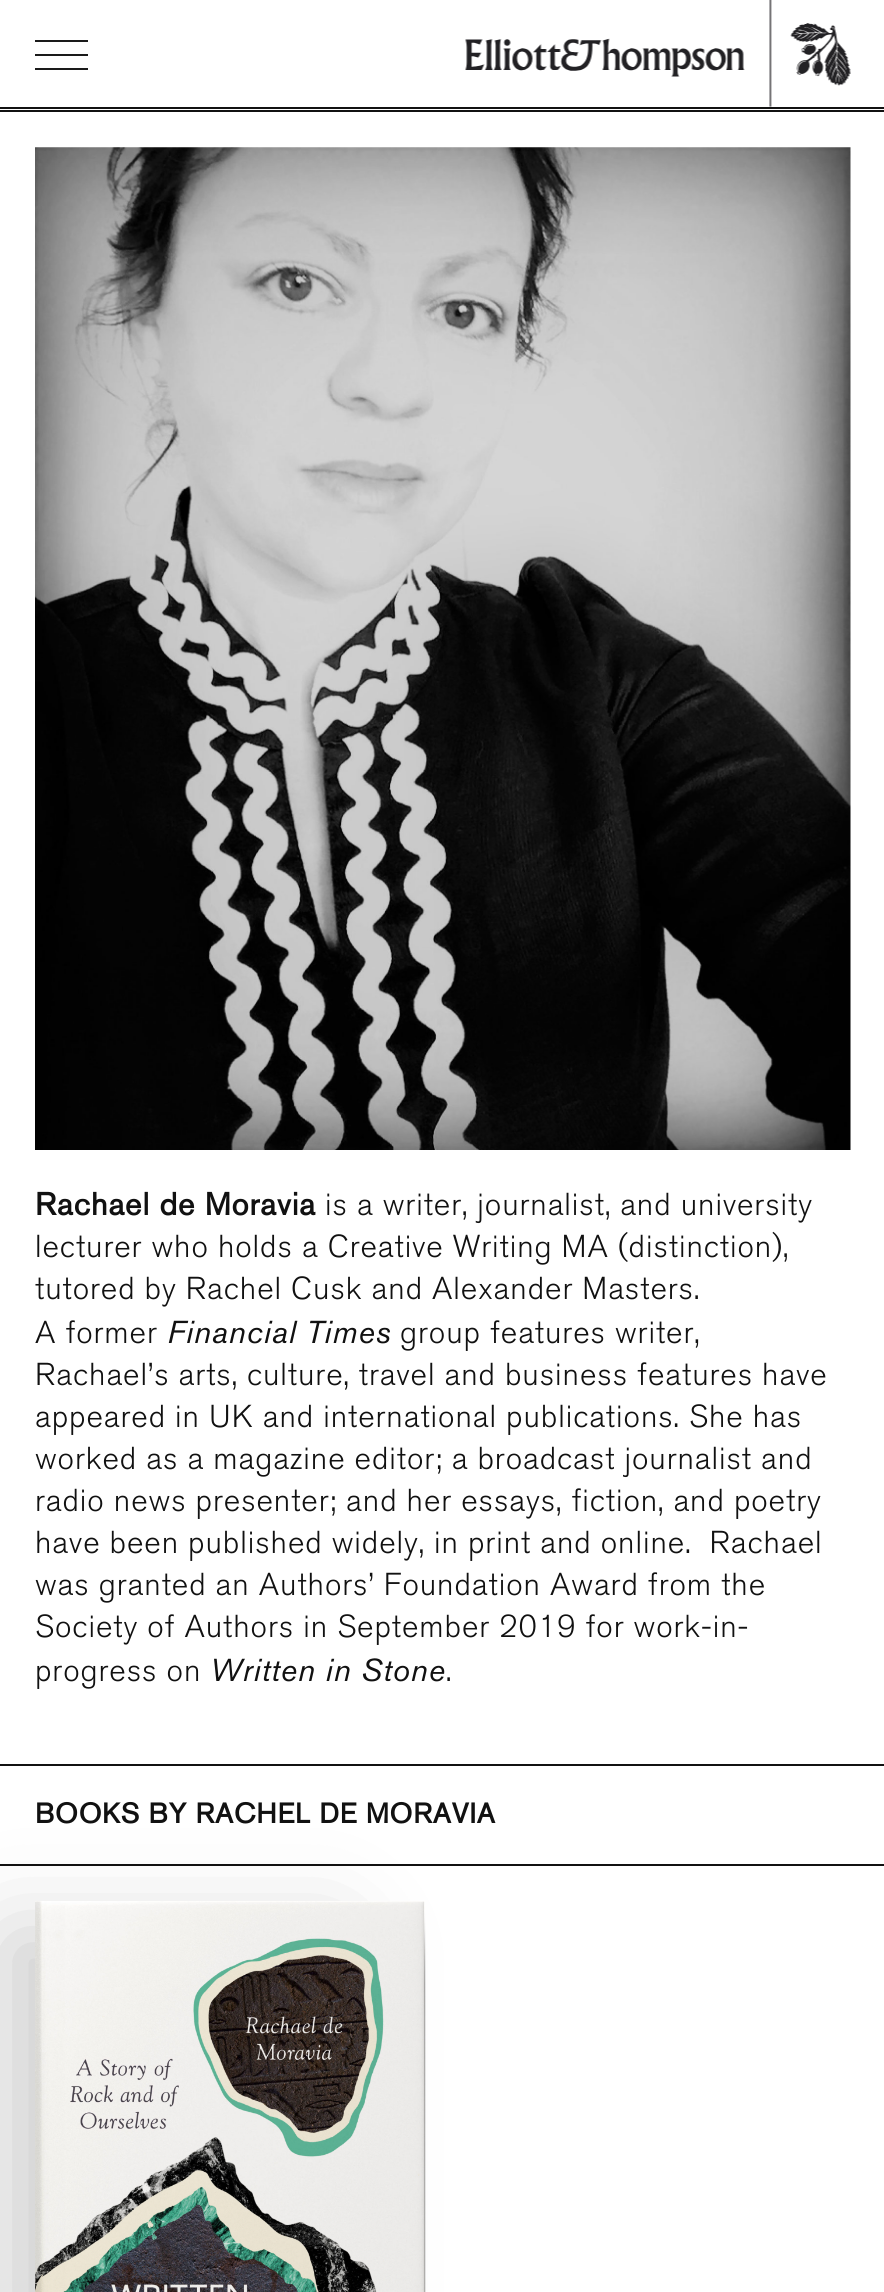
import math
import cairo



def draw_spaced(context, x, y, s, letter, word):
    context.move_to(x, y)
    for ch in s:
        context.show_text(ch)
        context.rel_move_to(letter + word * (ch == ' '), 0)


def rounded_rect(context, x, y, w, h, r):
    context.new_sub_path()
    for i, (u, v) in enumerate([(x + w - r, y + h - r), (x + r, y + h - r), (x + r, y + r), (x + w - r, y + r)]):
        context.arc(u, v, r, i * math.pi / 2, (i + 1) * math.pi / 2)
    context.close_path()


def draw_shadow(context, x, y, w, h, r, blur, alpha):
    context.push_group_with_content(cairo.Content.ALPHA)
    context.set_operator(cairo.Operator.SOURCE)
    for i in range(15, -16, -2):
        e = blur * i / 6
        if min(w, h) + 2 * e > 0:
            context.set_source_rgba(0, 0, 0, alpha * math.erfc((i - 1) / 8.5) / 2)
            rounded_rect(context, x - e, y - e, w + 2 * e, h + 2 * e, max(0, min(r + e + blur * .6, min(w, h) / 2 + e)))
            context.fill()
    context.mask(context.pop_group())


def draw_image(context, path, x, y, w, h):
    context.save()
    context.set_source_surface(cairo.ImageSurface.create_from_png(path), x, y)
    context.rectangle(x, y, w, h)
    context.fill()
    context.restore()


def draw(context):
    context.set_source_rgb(1, 1, 1)
    context.paint()
    context.set_source_rgb(17 / 255, 17 / 255, 17 / 255)
    context.rectangle(0, 107, 884, 2)
    context.fill()
    context.set_source_rgb(26 / 255, 26 / 255, 26 / 255)
    context.rectangle(35, 40, 53, 2)
    context.fill()
    context.rectangle(35, 54, 53, 2)
    context.fill()
    context.rectangle(35, 68, 53, 2)
    context.fill()
    draw_image(context, "images/1.png", 465, 0, 386, 107)
    context.set_source_rgb(17 / 255, 17 / 255, 17 / 255)
    context.rectangle(0, 110, 884, 2)
    context.fill()
    draw_image(context, "images/2.png", 35, 147, 816, 1003)
    context.rectangle(0, 1864, 884, 2)
    context.fill()
    context.set_source_rgb(0, 0, 0)
    draw_shadow(context, 4, 1934, 334, 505, 0, 49, 0.2)
    draw_image(context, "images/3.png", 35, 1901, 391, 391)
    context.set_source_rgb(17 / 255, 17 / 255, 17 / 255)
    context.rectangle(0, 1764, 884, 2)
    context.fill()
    context.select_font_face("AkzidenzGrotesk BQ", cairo.FontSlant.NORMAL, cairo.FontWeight.BOLD)
    context.set_font_size(31.5)
    draw_spaced(context, 35, 1215, "Rachael de Moravia", 0.95, 0)
    context.select_font_face("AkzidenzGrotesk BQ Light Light")
    draw_spaced(context, 325, 1215, "is a writer, journalist, and university", 0.95, 0)
    draw_spaced(context, 35, 1257, "lecturer who holds a Creative Writing MA (distinction),", 0.95, 0)
    draw_spaced(context, 35, 1299, "tutored by Rachel Cusk and Alexander Masters.", 0.95, 0)
    draw_spaced(context, 35, 1343, "A former", 0.95, 0)
    context.select_font_face("AkzidenzGrotesk BQ Medium", cairo.FontSlant.ITALIC)
    draw_spaced(context, 167, 1343, "Financial Times", 0.95, 0)
    context.select_font_face("AkzidenzGrotesk BQ Light Light")
    draw_spaced(context, 400, 1343, "group features writer,", 0.95, 0)
    draw_spaced(context, 35, 1385, "Rachael’s arts, culture, travel and business features have", 0.95, 0)
    draw_spaced(context, 35, 1427, "appeared in UK and international publications. She has", 0.95, 0)
    draw_spaced(context, 35, 1469, "worked as a magazine editor; a broadcast journalist and", 0.95, 0)
    draw_spaced(context, 35, 1511, "radio news presenter; and her essays, fiction, and poetry", 0.95, 0)
    draw_spaced(context, 35, 1553, "have been published widely, in print and online.  Rachael", 0.95, 0)
    draw_spaced(context, 35, 1595, "was granted an Authors’ Foundation Award from the", 0.95, 0)
    draw_spaced(context, 35, 1637, "Society of Authors in September 2019 for work-in-", 0.95, 0)
    draw_spaced(context, 35, 1681, "progress on", 0.95, 0)
    context.select_font_face("AkzidenzGrotesk BQ Medium", cairo.FontSlant.ITALIC)
    draw_spaced(context, 210, 1681, "Written in Stone", 0.95, 0)
    context.select_font_face("AkzidenzGrotesk BQ Light Light")
    draw_spaced(context, 446, 1681, ".", 0.95, 0)
    context.select_font_face("AkzidenzGrotesk BQ", cairo.FontSlant.NORMAL, cairo.FontWeight.BOLD)
    context.set_font_size(28)
    draw_spaced(context, 35, 1823, "BOOKS BY RACHEL DE MORAVIA", 0.85, 0)


surface = cairo.ImageSurface(cairo.Format.RGB24, 884, 2292)
context = cairo.Context(surface)
options = cairo.FontOptions()
options.set_hint_metrics(cairo.HintMetrics.OFF)
options.set_hint_style(cairo.HintStyle.NONE)
context.set_font_options(options)
context.set_miter_limit(4)
draw(context)
surface.write_to_png("out.png")
